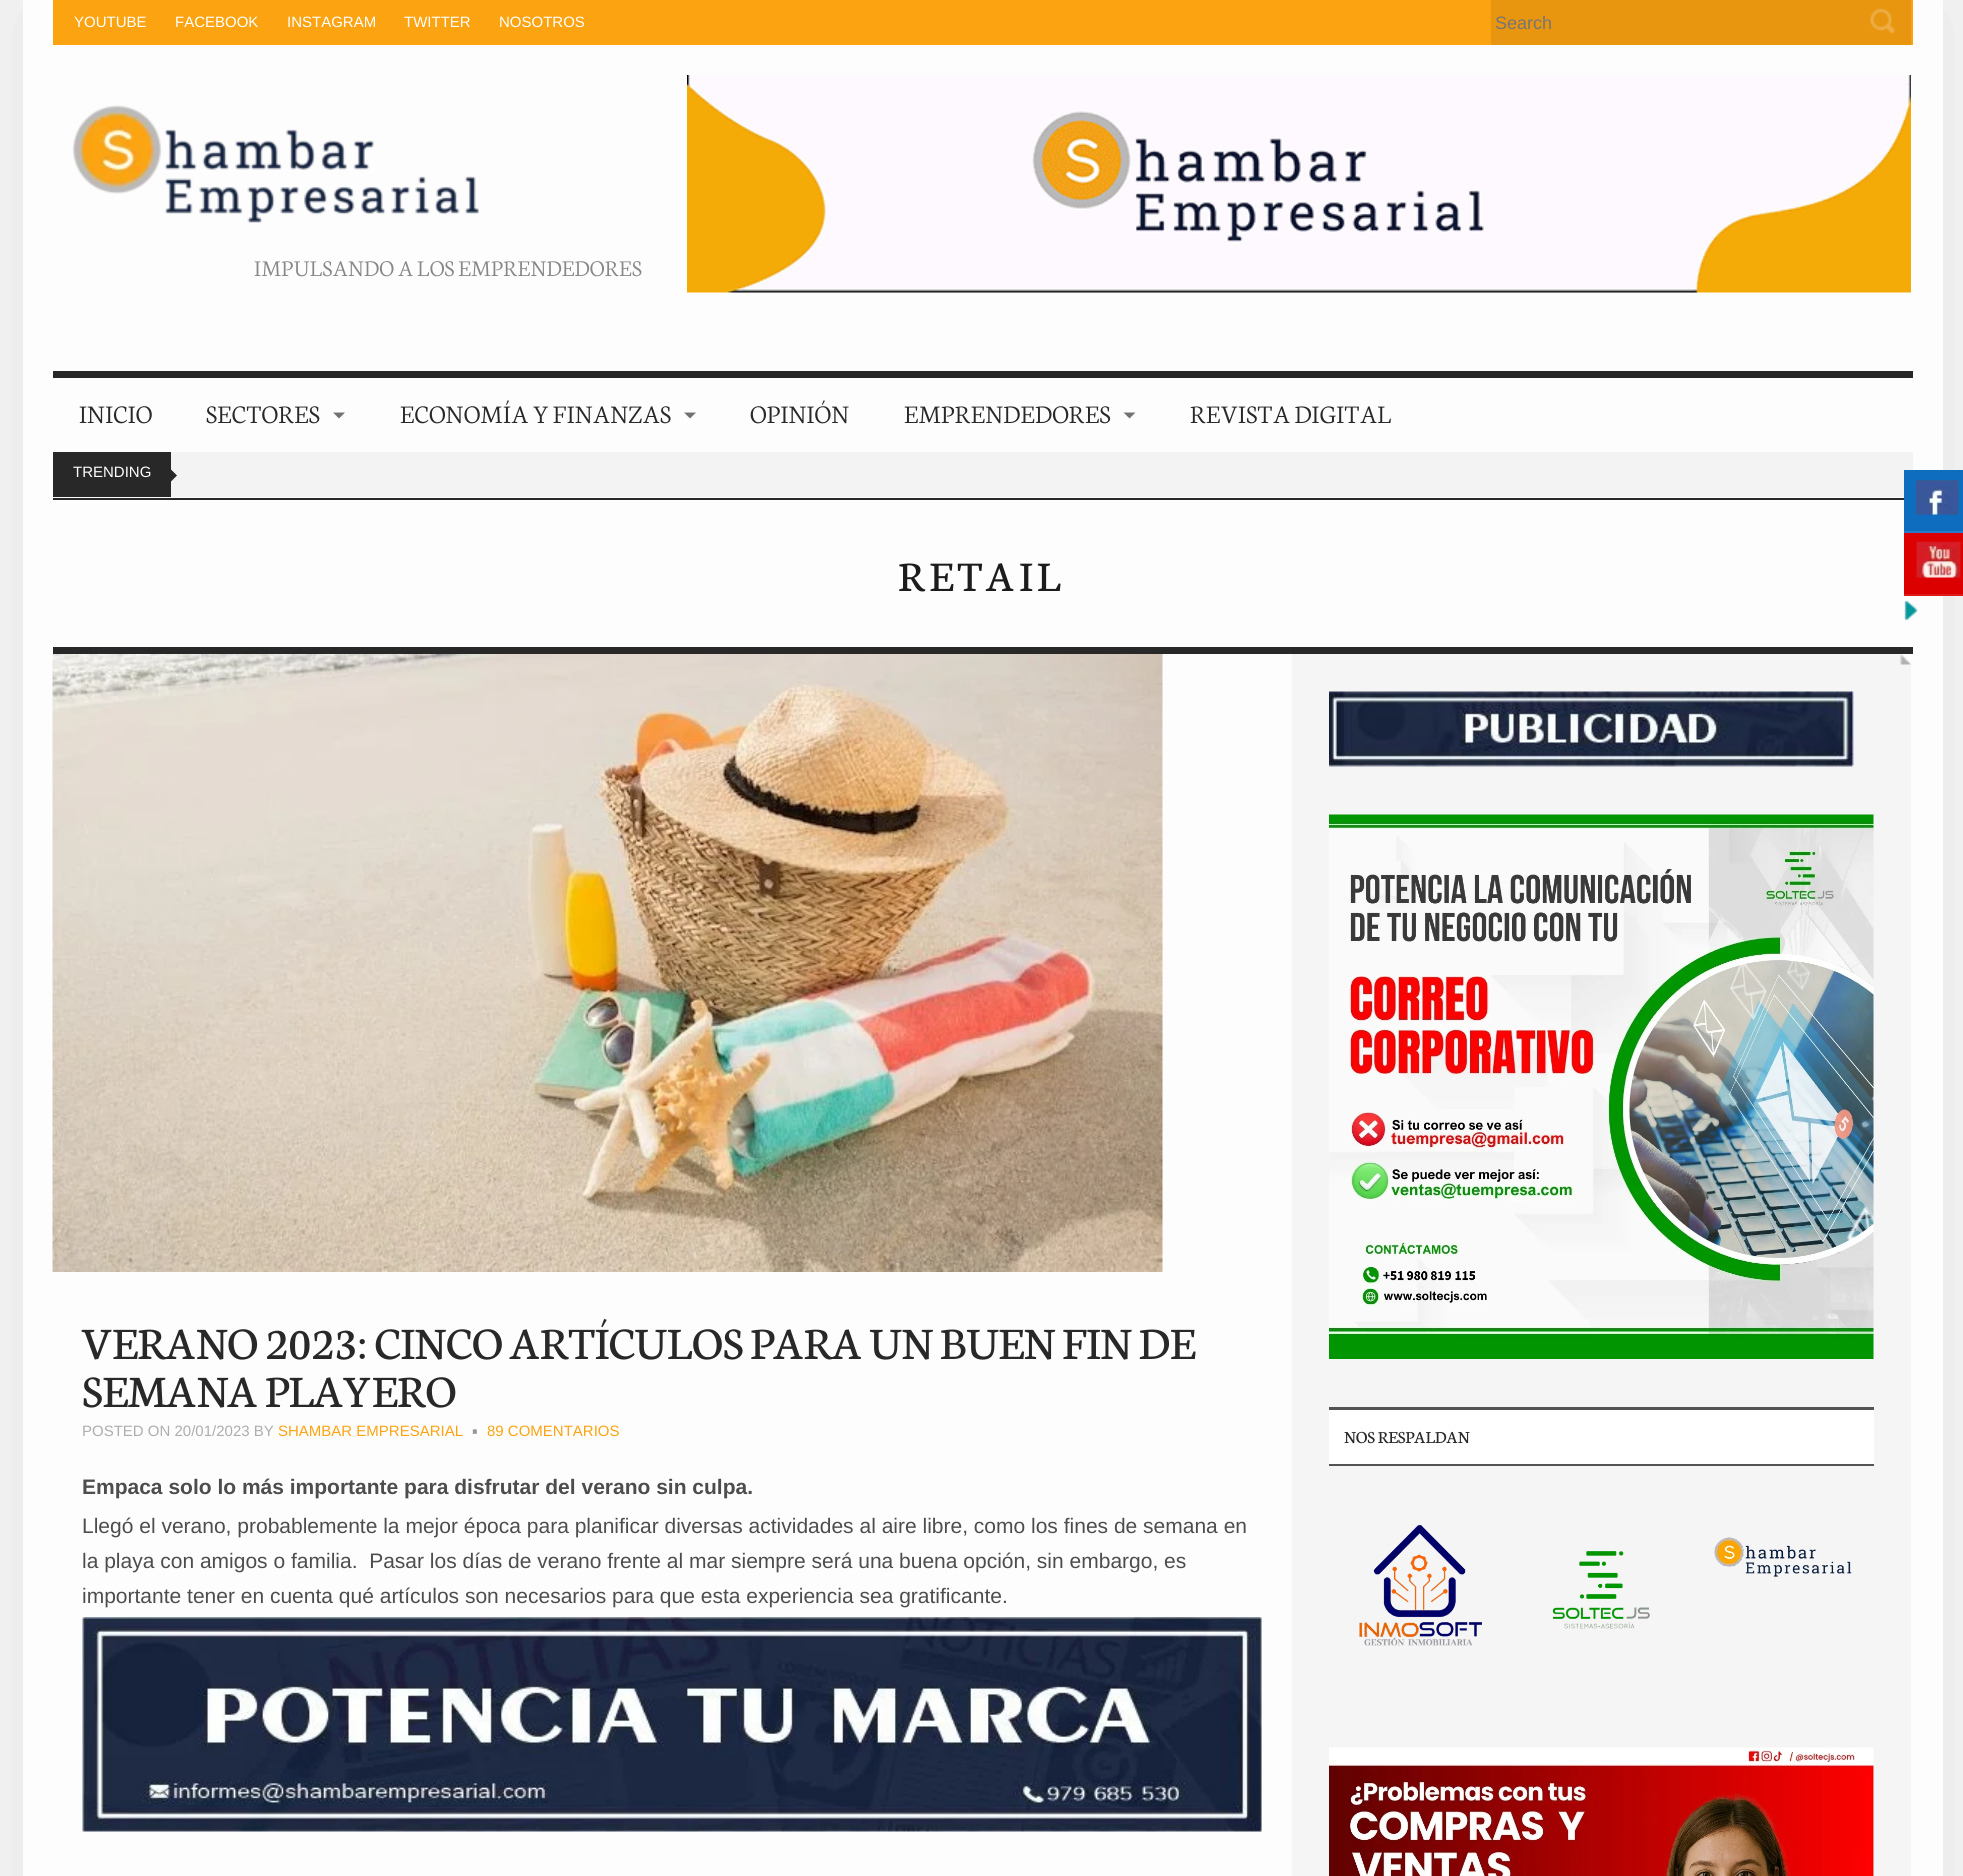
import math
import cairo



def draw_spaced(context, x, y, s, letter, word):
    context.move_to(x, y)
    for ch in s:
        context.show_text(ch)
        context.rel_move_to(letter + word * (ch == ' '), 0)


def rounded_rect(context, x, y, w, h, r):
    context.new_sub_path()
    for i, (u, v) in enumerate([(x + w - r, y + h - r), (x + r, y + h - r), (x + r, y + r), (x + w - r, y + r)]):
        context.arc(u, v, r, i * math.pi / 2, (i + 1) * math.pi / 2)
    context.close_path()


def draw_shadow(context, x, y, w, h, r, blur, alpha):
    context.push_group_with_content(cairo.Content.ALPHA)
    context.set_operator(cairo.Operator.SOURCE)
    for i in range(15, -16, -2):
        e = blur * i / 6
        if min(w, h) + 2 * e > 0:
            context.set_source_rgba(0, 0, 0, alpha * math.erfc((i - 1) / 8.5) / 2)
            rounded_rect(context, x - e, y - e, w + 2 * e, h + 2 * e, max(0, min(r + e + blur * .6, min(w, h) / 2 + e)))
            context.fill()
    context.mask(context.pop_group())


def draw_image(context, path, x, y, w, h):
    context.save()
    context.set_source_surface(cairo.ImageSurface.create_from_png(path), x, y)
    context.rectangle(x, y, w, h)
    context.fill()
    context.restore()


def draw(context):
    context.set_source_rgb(249 / 255, 249 / 255, 249 / 255)
    context.paint()
    context.set_source_rgb(0, 0, 0)
    draw_shadow(context, 23, 0, 1920, 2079, 0, 67.5, 0.1)
    context.set_source_rgb(253 / 255, 253 / 255, 253 / 255)
    context.rectangle(23, 0, 1920, 1876)
    context.fill()
    context.set_source_rgb(252 / 255, 163 / 255, 17 / 255)
    context.rectangle(53, 0, 1860, 45)
    context.fill()
    context.set_source_rgb(232 / 255, 150 / 255, 16 / 255)
    context.rectangle(1491, 0, 420, 45)
    context.fill()
    draw_image(context, "images/1.png", 1870, 8, 25, 26)
    context.set_source_rgb(40 / 255, 40 / 255, 40 / 255)
    context.rectangle(53, 371, 1860, 7)
    context.fill()
    draw_image(context, "images/2.png", 72, 105, 407, 118)
    draw_image(context, "images/3.png", 687, 75, 1224, 218)
    context.set_source_rgb(114 / 255, 114 / 255, 114 / 255)
    context.new_path()
    context.move_to(333, 412.5)
    context.line_to(345, 412.5)
    context.line_to(339, 418.5)
    context.close_path()
    context.fill()
    context.new_path()
    context.move_to(684, 412.5)
    context.line_to(696, 412.5)
    context.line_to(690, 418.5)
    context.close_path()
    context.fill()
    context.new_path()
    context.move_to(1123.5, 412.5)
    context.line_to(1135.5, 412.5)
    context.line_to(1129.5, 418.5)
    context.close_path()
    context.fill()
    context.set_source_rgb(243 / 255, 243 / 255, 243 / 255)
    context.rectangle(171, 452, 1742, 45)
    context.fill()
    context.set_source_rgb(40 / 255, 40 / 255, 40 / 255)
    context.rectangle(53, 452, 118, 45)
    context.fill()
    context.new_path()
    context.move_to(171, 481.5)
    context.line_to(171, 469.5)
    context.line_to(177, 475.5)
    context.close_path()
    context.fill()
    context.rectangle(53, 498, 1851, 2)
    context.fill()
    context.rectangle(53, 647, 1860, 7)
    context.fill()
    draw_image(context, "images/4.png", 52, 654, 1111, 618)
    draw_image(context, "images/5.png", 82, 1617, 1180, 215)
    context.set_source_rgb(245 / 255, 245 / 255, 245 / 255)
    context.rectangle(1292, 654, 619, 1222)
    context.fill()
    draw_image(context, "images/6.png", 1900, 654, 11, 11)
    draw_image(context, "images/7.png", 1329, 691, 525, 76)
    draw_image(context, "images/8.png", 1329, 814, 545, 545)
    context.set_source_rgb(1, 1, 1)
    context.rectangle(1329, 1410, 545, 54)
    context.fill()
    context.set_source_rgb(84 / 255, 84 / 255, 84 / 255)
    context.rectangle(1329, 1407, 545, 3)
    context.fill()
    context.rectangle(1329, 1464, 545, 2)
    context.fill()
    draw_image(context, "images/9.png", 1359, 1525, 123, 121)
    draw_image(context, "images/10.png", 1552, 1551, 98, 78)
    draw_image(context, "images/11.png", 1714, 1537, 138, 40)
    draw_image(context, "images/12.png", 1329, 1747, 545, 129)
    context.set_source_rgb(15 / 255, 109 / 255, 191 / 255)
    context.rectangle(1904, 470, 59, 61)
    context.fill()
    context.set_source_rgb(39 / 255, 124 / 255, 197 / 255)
    context.rectangle(1904, 531, 59, 2)
    context.fill()
    draw_image(context, "images/13.png", 1916, 480, 43, 35)
    context.set_source_rgb(221 / 255, 0, 0)
    context.rectangle(1904, 533, 59, 61)
    context.fill()
    context.set_source_rgb(224 / 255, 26 / 255, 26 / 255)
    context.rectangle(1904, 594, 59, 2)
    context.fill()
    draw_image(context, "images/14.png", 1916, 541, 45, 37)
    draw_image(context, "images/15.png", 1904, 600, 14, 21)
    context.select_font_face("Liberation Sans")
    context.set_font_size(15)
    context.set_source_rgb(1, 1, 1)
    context.move_to(74, 27)
    context.show_text("YOUTUBE")
    context.move_to(175, 27)
    context.show_text("FACEBOOK")
    context.move_to(287, 27)
    context.show_text("INSTAGRAM")
    context.move_to(404, 27)
    context.show_text("TWITTER")
    context.move_to(499, 27)
    context.show_text("NOSOTROS")
    context.set_font_size(18)
    context.set_source_rgb(117 / 255, 117 / 255, 117 / 255)
    context.move_to(1495, 29)
    context.show_text("Search")
    context.select_font_face("Neuton Light")
    context.set_font_size(24)
    context.set_source_rgb(135 / 255, 135 / 255, 135 / 255)
    context.move_to(254, 276)
    context.show_text("IMPULSANDO A LOS EMPRENDEDORES")
    context.set_font_size(27)
    context.set_source_rgb(40 / 255, 40 / 255, 40 / 255)
    context.move_to(79, 423)
    context.show_text("INICIO")
    context.move_to(206, 423)
    context.show_text("SECTORES")
    context.move_to(400, 423)
    context.show_text("ECONOMÍA Y FINANZAS")
    context.move_to(750, 423)
    context.show_text("OPINIÓN")
    context.move_to(904, 423)
    context.show_text("EMPRENDEDORES")
    context.move_to(1190, 423)
    context.show_text("REVISTA DIGITAL")
    context.select_font_face("Liberation Sans")
    context.set_font_size(15)
    context.set_source_rgb(1, 1, 1)
    context.move_to(73, 477)
    context.show_text("TRENDING")
    context.select_font_face("Neuton")
    context.set_font_size(45)
    context.set_source_rgb(28 / 255, 28 / 255, 28 / 255)
    draw_spaced(context, 898, 591, "RETAIL", 4.5, 0)
    context.set_font_size(48)
    context.set_source_rgb(40 / 255, 40 / 255, 40 / 255)
    context.move_to(82, 1359)
    context.show_text("VERANO 2023: CINCO ARTÍCULOS PARA UN BUEN FIN DE")
    context.move_to(82, 1407)
    context.show_text("SEMANA PLAYERO")
    context.select_font_face("Liberation Sans")
    context.set_font_size(15)
    context.set_source_rgb(173 / 255, 173 / 255, 173 / 255)
    context.move_to(82, 1436)
    context.show_text("POSTED ON 20/01/2023 BY")
    context.set_source_rgb(252 / 255, 163 / 255, 17 / 255)
    context.move_to(278, 1436)
    context.show_text("SHAMBAR EMPRESARIAL")
    context.set_font_size(42)
    context.set_source_rgb(151 / 255, 151 / 255, 151 / 255)
    context.move_to(469, 1443)
    context.show_text("∙")
    context.set_font_size(15)
    context.set_source_rgb(252 / 255, 163 / 255, 17 / 255)
    context.move_to(487, 1436)
    context.show_text("89 COMENTARIOS")
    context.select_font_face("Liberation Sans", cairo.FontSlant.NORMAL, cairo.FontWeight.BOLD)
    context.set_font_size(21)
    context.set_source_rgb(77 / 255, 77 / 255, 77 / 255)
    context.move_to(82, 1494)
    context.show_text("Empaca solo lo más importante para disfrutar del verano sin culpa.")
    context.select_font_face("Liberation Sans")
    context.move_to(82, 1533)
    context.show_text("Llegó el verano, probablemente la mejor época para planificar diversas actividades al aire libre, como los fines de semana en")
    context.move_to(82, 1568)
    context.show_text("la playa con amigos o familia.  Pasar los días de verano frente al mar siempre será una buena opción, sin embargo, es")
    context.move_to(82, 1603)
    context.show_text("importante tener en cuenta qué artículos son necesarios para que esta experiencia sea gratificante.")
    context.select_font_face("Neuton")
    context.set_font_size(18)
    context.set_source_rgb(40 / 255, 40 / 255, 40 / 255)
    context.move_to(1344, 1443)
    context.show_text("NOS RESPALDAN")


surface = cairo.ImageSurface(cairo.Format.RGB24, 1963, 1876)
context = cairo.Context(surface)
options = cairo.FontOptions()
options.set_hint_metrics(cairo.HintMetrics.OFF)
options.set_hint_style(cairo.HintStyle.NONE)
context.set_font_options(options)
context.set_miter_limit(4)
draw(context)
surface.write_to_png("out.png")
